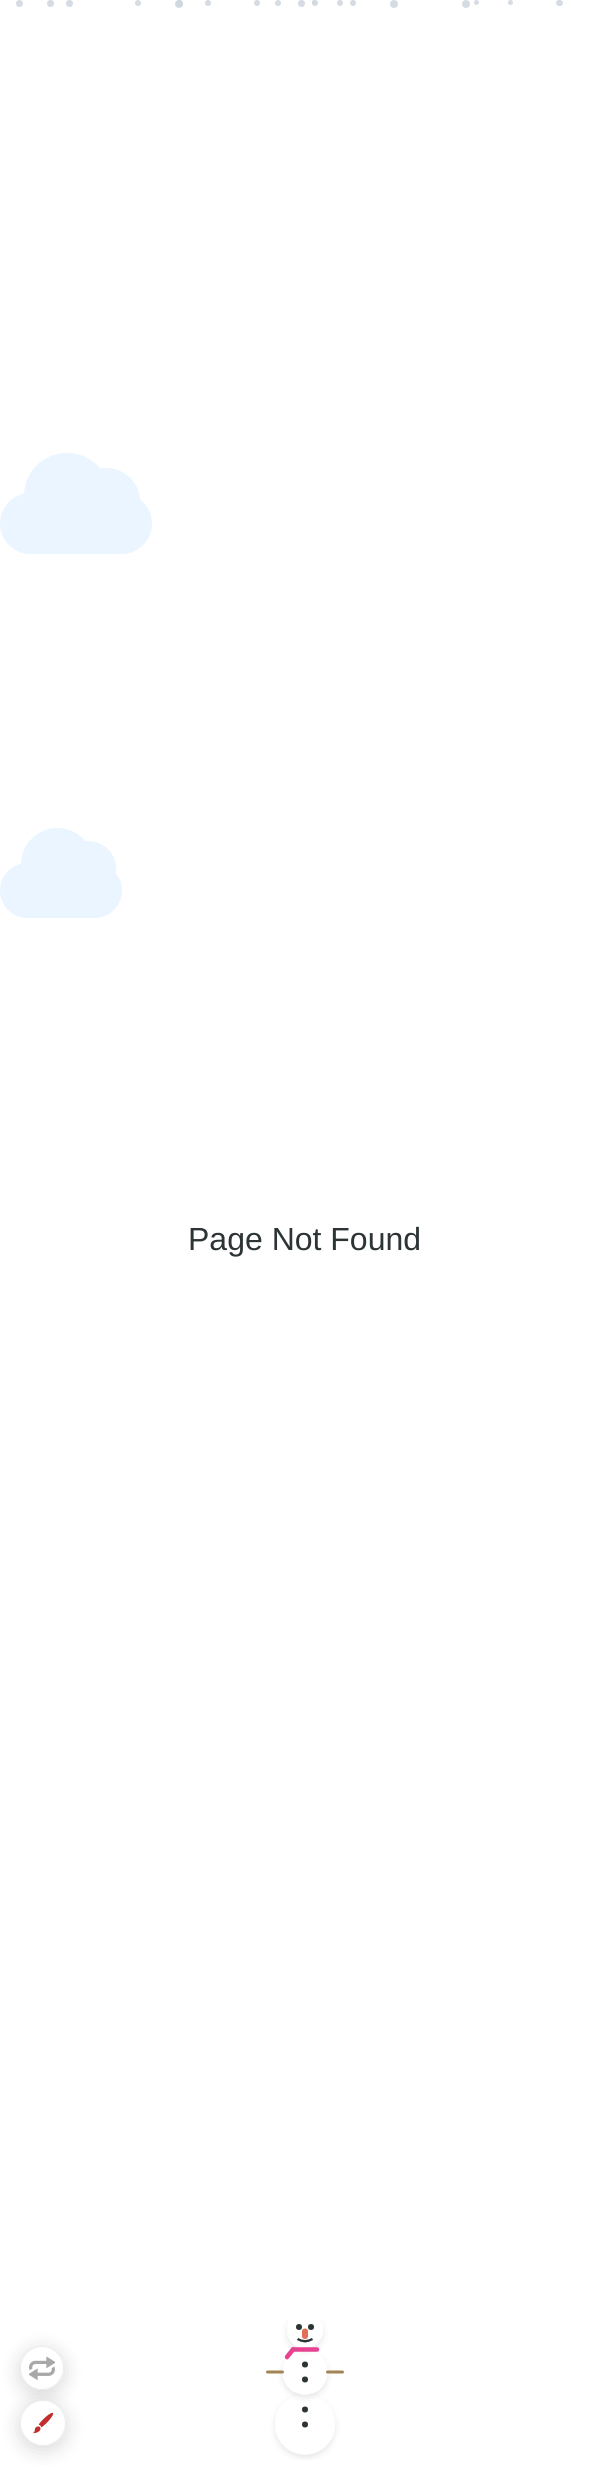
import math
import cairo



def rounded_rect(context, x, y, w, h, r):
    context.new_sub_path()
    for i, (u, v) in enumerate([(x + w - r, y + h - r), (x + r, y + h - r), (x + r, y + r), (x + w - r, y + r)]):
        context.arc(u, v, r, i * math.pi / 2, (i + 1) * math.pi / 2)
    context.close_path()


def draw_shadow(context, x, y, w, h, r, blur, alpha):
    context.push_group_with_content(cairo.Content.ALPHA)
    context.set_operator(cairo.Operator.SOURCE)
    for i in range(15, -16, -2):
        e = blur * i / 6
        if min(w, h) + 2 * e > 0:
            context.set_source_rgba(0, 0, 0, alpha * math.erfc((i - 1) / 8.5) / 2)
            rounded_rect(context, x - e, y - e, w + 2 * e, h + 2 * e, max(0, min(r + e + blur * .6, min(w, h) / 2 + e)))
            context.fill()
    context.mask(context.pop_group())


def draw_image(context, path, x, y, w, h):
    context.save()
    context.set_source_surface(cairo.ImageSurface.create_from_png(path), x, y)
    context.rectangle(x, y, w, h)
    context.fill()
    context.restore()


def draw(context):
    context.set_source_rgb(1, 1, 1)
    context.paint()
    context.set_source_rgb(214 / 255, 220 / 255, 227 / 255)
    context.arc(19.5, 3.5, 3.5, 0, 2 * math.pi)
    context.fill()
    context.arc(50.5, 3.5, 3.5, 0, 2 * math.pi)
    context.fill()
    context.arc(69.5, 3.5, 3.5, 0, 2 * math.pi)
    context.fill()
    context.arc(138, 3, 3, 0, 2 * math.pi)
    context.fill()
    context.arc(179.5, 3.5, 3.5, 0, 2 * math.pi)
    context.fill()
    context.set_source_rgba(209 / 255, 216 / 255, 224 / 255, 0.9)
    context.arc(179, 4, 4, 0, 2 * math.pi)
    context.fill()
    context.set_source_rgb(214 / 255, 220 / 255, 227 / 255)
    context.arc(208, 3, 3, 0, 2 * math.pi)
    context.fill()
    context.arc(257, 3, 3, 0, 2 * math.pi)
    context.fill()
    context.arc(278, 3, 3, 0, 2 * math.pi)
    context.fill()
    context.arc(301.5, 3.5, 3.5, 0, 2 * math.pi)
    context.fill()
    context.arc(315, 3, 3, 0, 2 * math.pi)
    context.fill()
    context.set_source_rgba(209 / 255, 216 / 255, 224 / 255, 0.9)
    rounded_rect(context, 312, 0, 4, 5, 2)
    context.fill()
    context.set_source_rgb(214 / 255, 220 / 255, 227 / 255)
    context.arc(340, 3, 3, 0, 2 * math.pi)
    context.fill()
    context.arc(353, 3, 3, 0, 2 * math.pi)
    context.fill()
    context.arc(394, 4, 4, 0, 2 * math.pi)
    context.fill()
    context.arc(466, 4, 4, 0, 2 * math.pi)
    context.fill()
    context.arc(476.5, 2.5, 2.5, 0, 2 * math.pi)
    context.fill()
    context.arc(510.5, 2.5, 2.5, 0, 2 * math.pi)
    context.fill()
    rounded_rect(context, 556, 0, 7, 6, 3)
    context.fill()
    context.set_source_rgb(234 / 255, 245 / 255, 1)
    rounded_rect(context, 0, 493, 152, 61, 30.5)
    context.fill()
    rounded_rect(context, 24, 453, 86, 85, 42.5)
    context.fill()
    context.arc(106.5, 501.5, 33.5, 0, 2 * math.pi)
    context.fill()
    rounded_rect(context, 0, 863, 122, 55, 27.5)
    context.fill()
    context.arc(57.5, 864.5, 36.5, 0, 2 * math.pi)
    context.fill()
    context.arc(88.5, 868.5, 27.5, 0, 2 * math.pi)
    context.fill()
    draw_image(context, "images/1.png", 266, 2319, 78, 141)
    context.save()
    context.set_fill_rule(cairo.FillRule.EVEN_ODD)
    context.new_path()
    context.move_to(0, 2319)
    context.line_to(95, 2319)
    context.line_to(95, 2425)
    context.line_to(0, 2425)
    context.close_path()
    context.move_to(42, 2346)
    context.curve_to(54, 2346, 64, 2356, 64, 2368)
    context.curve_to(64, 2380, 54, 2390, 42, 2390)
    context.curve_to(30, 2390, 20, 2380, 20, 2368)
    context.curve_to(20, 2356, 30, 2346, 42, 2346)
    context.close_path()
    context.clip()
    context.set_source_rgb(0, 0, 0)
    draw_shadow(context, 20, 2350, 44, 44, 22, 10, 0.15)
    context.restore()
    context.set_source_rgba(1, 1, 1, 0.95)
    context.arc(42, 2368, 22, 0, 2 * math.pi)
    context.fill()
    context.arc(42, 2368, 21.5, 0, 2 * math.pi)
    context.set_source_rgba(0, 0, 0, 0.08)
    context.set_line_width(1)
    context.stroke()
    draw_image(context, "images/2.png", 29, 2356, 26, 25)
    context.save()
    context.set_fill_rule(cairo.FillRule.EVEN_ODD)
    context.new_path()
    context.move_to(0, 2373)
    context.line_to(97, 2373)
    context.line_to(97, 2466)
    context.line_to(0, 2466)
    context.close_path()
    context.move_to(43, 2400)
    context.curve_to(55.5, 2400, 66, 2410.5, 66, 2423)
    context.curve_to(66, 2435.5, 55.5, 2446, 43, 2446)
    context.curve_to(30.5, 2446, 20, 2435.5, 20, 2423)
    context.curve_to(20, 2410.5, 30.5, 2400, 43, 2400)
    context.close_path()
    context.clip()
    context.set_source_rgb(0, 0, 0)
    draw_shadow(context, 20, 2404, 46, 46, 23, 10, 0.15)
    context.restore()
    context.set_source_rgba(1, 1, 1, 0.95)
    context.arc(43, 2423, 23, 0, 2 * math.pi)
    context.fill()
    context.arc(43, 2423, 22.5, 0, 2 * math.pi)
    context.set_source_rgba(0, 0, 0, 0.08)
    context.stroke()
    draw_image(context, "images/3.png", 33, 2412, 21, 22)
    context.select_font_face("Liberation Sans")
    context.set_font_size(32)
    context.set_source_rgb(45 / 255, 52 / 255, 54 / 255)
    context.move_to(188, 1250)
    context.show_text("Page Not Found")


surface = cairo.ImageSurface(cairo.Format.RGB24, 609, 2466)
context = cairo.Context(surface)
options = cairo.FontOptions()
options.set_hint_metrics(cairo.HintMetrics.OFF)
options.set_hint_style(cairo.HintStyle.NONE)
context.set_font_options(options)
context.set_miter_limit(4)
draw(context)
surface.write_to_png("out.png")
